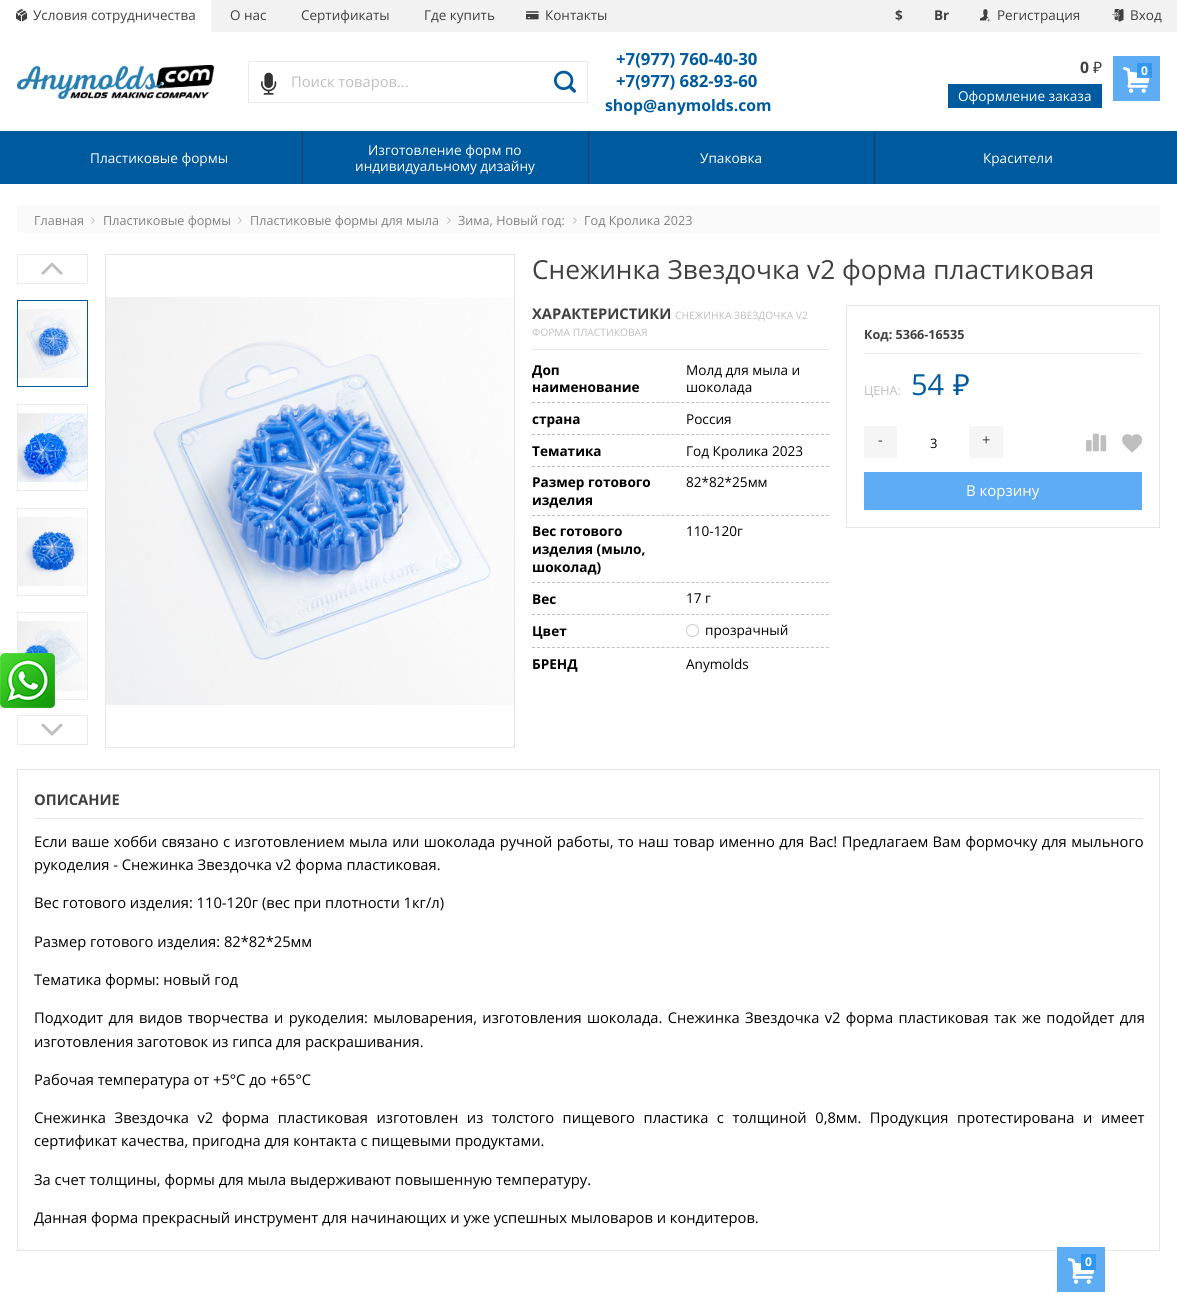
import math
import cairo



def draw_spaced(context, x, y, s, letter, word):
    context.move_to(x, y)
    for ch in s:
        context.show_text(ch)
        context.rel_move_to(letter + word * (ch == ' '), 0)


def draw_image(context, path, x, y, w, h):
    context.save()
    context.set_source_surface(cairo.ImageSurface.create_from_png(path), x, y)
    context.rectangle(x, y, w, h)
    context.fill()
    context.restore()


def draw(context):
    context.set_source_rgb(1, 1, 1)
    context.paint()
    context.rectangle(17.5, 612.5, 70, 87)
    context.set_source_rgb(235 / 255, 235 / 255, 235 / 255)
    context.set_line_width(1)
    context.stroke()
    draw_image(context, "images/15.png", 18, 621, 69, 70)
    draw_image(context, "images/1.png", 0, 653, 55, 55)
    context.set_source_rgb(242 / 255, 242 / 255, 242 / 255)
    context.rectangle(211, 0, 966, 32)
    context.fill()
    draw_image(context, "images/2.png", 16, 9, 12, 13)
    draw_image(context, "images/3.png", 526, 11, 13, 9)
    draw_image(context, "images/4.png", 980, 9, 11, 13)
    draw_image(context, "images/5.png", 1112, 9, 12, 13)
    draw_image(context, "images/6.png", 17, 65, 197, 34)
    context.rectangle(248.5, 61.5, 339, 41)
    context.set_source_rgb(235 / 255, 235 / 255, 235 / 255)
    context.stroke()
    draw_image(context, "images/7.png", 261, 72, 16, 23)
    draw_image(context, "images/8.png", 554, 70, 22, 23)
    context.set_source_rgb(0, 90 / 255, 158 / 255)
    context.rectangle(948, 84, 154, 24)
    context.fill()
    context.set_source_rgb(94 / 255, 173 / 255, 244 / 255)
    context.rectangle(1113, 56, 47, 45)
    context.fill()
    draw_image(context, "images/9.png", 1123, 67, 27, 26)
    context.set_source_rgba(46 / 255, 149 / 255, 241 / 255, 0.9)
    context.rectangle(1137, 63, 15, 15)
    context.fill()
    context.set_source_rgb(0, 90 / 255, 158 / 255)
    context.rectangle(0, 131, 1177, 53)
    context.fill()
    context.set_source_rgb(0, 61 / 255, 107 / 255)
    context.rectangle(302, 131, 1, 53)
    context.fill()
    context.rectangle(588, 131, 1, 53)
    context.fill()
    context.rectangle(874, 131, 1, 53)
    context.fill()
    context.set_source_rgb(250 / 255, 250 / 255, 250 / 255)
    context.rectangle(17, 205, 1143, 28)
    context.fill()
    draw_image(context, "images/10.png", 91, 217, 4, 7)
    draw_image(context, "images/10.png", 238, 217, 4, 7)
    draw_image(context, "images/10.png", 447, 217, 4, 7)
    draw_image(context, "images/10.png", 573, 217, 4, 7)
    context.rectangle(17.5, 254.5, 70, 29)
    context.set_source_rgb(235 / 255, 235 / 255, 235 / 255)
    context.stroke()
    draw_image(context, "images/11.png", 41, 262, 22, 13)
    context.rectangle(17.5, 300.5, 70, 86)
    context.set_source_rgb(0, 90 / 255, 158 / 255)
    context.stroke()
    draw_image(context, "images/12.png", 18, 309, 69, 69)
    context.rectangle(17.5, 404.5, 70, 86)
    context.set_source_rgb(235 / 255, 235 / 255, 235 / 255)
    context.stroke()
    draw_image(context, "images/13.png", 18, 413, 69, 69)
    context.rectangle(17.5, 508.5, 70, 87)
    context.stroke()
    draw_image(context, "images/14.png", 18, 517, 69, 69)
    context.rectangle(17.5, 715.5, 70, 29)
    context.stroke()
    draw_image(context, "images/16.png", 41, 723, 22, 13)
    context.rectangle(105.5, 254.5, 409, 493)
    context.set_source_rgb(230 / 255, 230 / 255, 230 / 255)
    context.stroke()
    draw_image(context, "images/17.png", 106, 297, 408, 408)
    context.rectangle(532, 349, 297, 1)
    context.fill()
    context.new_path()
    context.move_to(532, 402.5)
    context.line_to(829, 402.5)
    context.set_source_rgb(191 / 255, 191 / 255, 191 / 255)
    context.set_dash([3, 1.98])
    context.stroke()
    context.new_path()
    context.move_to(532, 434.5)
    context.line_to(829, 434.5)
    context.stroke()
    context.new_path()
    context.move_to(532, 466.5)
    context.line_to(829, 466.5)
    context.stroke()
    context.new_path()
    context.move_to(532, 515.5)
    context.line_to(829, 515.5)
    context.stroke()
    context.new_path()
    context.move_to(532, 582.5)
    context.line_to(829, 582.5)
    context.stroke()
    context.new_path()
    context.move_to(532, 614.5)
    context.line_to(829, 614.5)
    context.stroke()
    context.new_path()
    context.move_to(532, 647.5)
    context.line_to(829, 647.5)
    context.stroke()
    context.arc(692.5, 630.5, 6, 0, 2 * math.pi)
    context.set_source_rgb(204 / 255, 204 / 255, 204 / 255)
    context.set_dash([])
    context.stroke()
    context.rectangle(846.5, 305.5, 313, 222)
    context.set_source_rgb(230 / 255, 230 / 255, 230 / 255)
    context.stroke()
    context.set_source_rgb(235 / 255, 235 / 255, 235 / 255)
    context.rectangle(864, 353, 278, 1)
    context.fill()
    context.set_source_rgb(245 / 255, 245 / 255, 245 / 255)
    context.rectangle(864, 426, 33, 32)
    context.fill()
    context.rectangle(969, 426, 34, 32)
    context.fill()
    draw_image(context, "images/18.png", 1086, 433, 21, 19)
    draw_image(context, "images/19.png", 1122, 434, 21, 19)
    context.set_source_rgb(94 / 255, 173 / 255, 244 / 255)
    context.rectangle(864, 472, 278, 38)
    context.fill()
    context.rectangle(17.5, 769.5, 1142, 481)
    context.set_source_rgb(230 / 255, 230 / 255, 230 / 255)
    context.stroke()
    context.rectangle(34, 818, 1109, 1)
    context.fill()
    context.set_source_rgb(94 / 255, 173 / 255, 244 / 255)
    context.rectangle(1057, 1247, 48, 45)
    context.fill()
    draw_image(context, "images/9.png", 1068, 1258, 27, 26)
    context.set_source_rgb(46 / 255, 149 / 255, 241 / 255)
    context.rectangle(1081, 1254, 15, 16)
    context.fill()
    context.select_font_face("Open Sans")
    context.set_font_size(13.5)
    context.set_source_rgb(64 / 255, 64 / 255, 64 / 255)
    context.move_to(33, 20)
    context.show_text("Условия сотрудничества")
    context.move_to(230, 20)
    context.show_text("О нас")
    context.move_to(301, 20)
    context.show_text("Сертификаты")
    context.move_to(424, 20)
    context.show_text("Где купить")
    context.move_to(545, 20)
    context.show_text("Контакты")
    context.select_font_face("Open Sans", cairo.FontSlant.NORMAL, cairo.FontWeight.BOLD)
    context.move_to(895, 20)
    context.show_text("$")
    context.move_to(934, 20)
    context.show_text("Br")
    context.select_font_face("Open Sans")
    context.move_to(997, 20)
    context.show_text("Регистрация")
    context.move_to(1130, 20)
    context.show_text("Вход")
    context.set_font_size(14.7)
    context.set_source_rgb(191 / 255, 191 / 255, 191 / 255)
    context.move_to(291, 87)
    context.show_text("Поиск товаров...")
    context.select_font_face("Open Sans", cairo.FontSlant.NORMAL, cairo.FontWeight.BOLD)
    context.set_font_size(16.75)
    context.set_source_rgb(0, 90 / 255, 158 / 255)
    context.move_to(616, 65)
    context.show_text("+7(977) 760-40-30")
    context.move_to(616, 87)
    context.show_text("+7(977) 682-93-60")
    context.set_font_size(15.75)
    context.move_to(605, 111)
    context.show_text("shop@anymolds.com")
    context.set_source_rgb(64 / 255, 64 / 255, 64 / 255)
    context.move_to(1080, 73)
    context.show_text("0")
    context.select_font_face("Noto Sans")
    context.move_to(1093, 73)
    context.show_text("₽")
    context.select_font_face("Open Sans")
    context.set_font_size(13.6)
    context.set_source_rgb(1, 1, 1)
    context.move_to(958, 101)
    context.show_text("Оформление заказа")
    context.select_font_face("Open Sans", cairo.FontSlant.NORMAL, cairo.FontWeight.BOLD)
    context.set_font_size(12)
    context.move_to(1141, 75)
    context.show_text("0")
    context.select_font_face("Open Sans")
    context.set_font_size(13.6)
    context.move_to(90, 163)
    context.show_text("Пластиковые формы")
    context.move_to(368, 155)
    context.show_text("Изготовление форм по")
    context.move_to(355, 171)
    context.show_text("индивидуальному дизайну")
    context.move_to(700, 163)
    context.show_text("Упаковка")
    context.move_to(983, 163)
    context.show_text("Красители")
    context.set_font_size(12.6)
    context.set_source_rgb(128 / 255, 128 / 255, 128 / 255)
    context.move_to(34, 225)
    context.show_text("Главная")
    context.move_to(103, 225)
    context.show_text("Пластиковые формы")
    context.move_to(250, 225)
    context.show_text("Пластиковые формы для мыла")
    context.move_to(458, 225)
    context.show_text("Зима, Новый год:")
    context.move_to(584, 225)
    context.show_text("Год Кролика 2023")
    context.set_font_size(26.25)
    context.set_source_rgb(64 / 255, 64 / 255, 64 / 255)
    context.move_to(532, 279)
    context.show_text("Снежинка Звездочка v2 форма пластиковая")
    context.select_font_face("Open Sans", cairo.FontSlant.NORMAL, cairo.FontWeight.BOLD)
    context.set_font_size(14.7)
    context.move_to(532, 319)
    context.show_text("ХАРАКТЕРИСТИКИ")
    context.select_font_face("Open Sans")
    context.set_font_size(10.25)
    context.set_source_rgb(191 / 255, 191 / 255, 191 / 255)
    context.move_to(675, 319)
    context.show_text("СНЕЖИНКА ЗВЕЗДОЧКА V2")
    context.move_to(532, 336)
    context.show_text("ФОРМА ПЛАСТИКОВАЯ")
    context.select_font_face("Open Sans", cairo.FontSlant.NORMAL, cairo.FontWeight.BOLD)
    context.set_font_size(13.6)
    context.set_source_rgb(0, 0, 0)
    context.move_to(532, 375)
    context.show_text("Доп")
    context.move_to(532, 392)
    context.show_text("наименование")
    context.select_font_face("Open Sans")
    context.move_to(686, 375)
    context.show_text("Молд для мыла и")
    context.move_to(686, 392)
    context.show_text("шоколада")
    context.select_font_face("Open Sans", cairo.FontSlant.NORMAL, cairo.FontWeight.BOLD)
    context.move_to(532, 424)
    context.show_text("страна")
    context.select_font_face("Open Sans")
    context.move_to(686, 424)
    context.show_text("Россия")
    context.select_font_face("Open Sans", cairo.FontSlant.NORMAL, cairo.FontWeight.BOLD)
    context.move_to(532, 456)
    context.show_text("Тематика")
    context.select_font_face("Open Sans")
    context.move_to(686, 456)
    context.show_text("Год Кролика 2023")
    context.select_font_face("Open Sans", cairo.FontSlant.NORMAL, cairo.FontWeight.BOLD)
    context.move_to(532, 487)
    context.show_text("Размер готового")
    context.move_to(532, 505)
    context.show_text("изделия")
    context.select_font_face("Open Sans")
    context.move_to(686, 487)
    context.show_text("82*82*25мм")
    context.select_font_face("Open Sans", cairo.FontSlant.NORMAL, cairo.FontWeight.BOLD)
    context.move_to(532, 536)
    context.show_text("Вес готового")
    context.move_to(532, 554)
    context.show_text("изделия (мыло,")
    context.move_to(532, 572)
    context.show_text("шоколад)")
    context.select_font_face("Open Sans")
    context.move_to(686, 536)
    context.show_text("110-120г")
    context.select_font_face("Open Sans", cairo.FontSlant.NORMAL, cairo.FontWeight.BOLD)
    context.move_to(532, 604)
    context.show_text("Вес")
    context.select_font_face("Open Sans")
    context.move_to(686, 603)
    context.show_text("17 г")
    context.select_font_face("Open Sans", cairo.FontSlant.NORMAL, cairo.FontWeight.BOLD)
    context.move_to(532, 636)
    context.show_text("Цвет")
    context.select_font_face("Open Sans")
    context.move_to(705, 635)
    context.show_text("прозрачный")
    context.select_font_face("Open Sans", cairo.FontSlant.NORMAL, cairo.FontWeight.BOLD)
    context.move_to(532, 669)
    context.show_text("БРЕНД")
    context.select_font_face("Open Sans")
    context.move_to(686, 669)
    context.show_text("Anymolds")
    context.select_font_face("Open Sans", cairo.FontSlant.NORMAL, cairo.FontWeight.BOLD)
    context.set_font_size(12.6)
    context.set_source_rgb(64 / 255, 64 / 255, 64 / 255)
    context.move_to(864, 339)
    context.show_text("Код: 5366-16535")
    context.select_font_face("Open Sans")
    context.set_source_rgb(191 / 255, 191 / 255, 191 / 255)
    context.move_to(864, 395)
    context.show_text("ЦЕНА:")
    context.set_font_size(29)
    context.set_source_rgb(0, 90 / 255, 158 / 255)
    context.move_to(911, 395)
    context.show_text("54")
    context.select_font_face("Noto Sans")
    context.move_to(953, 395)
    context.show_text("₽")
    context.select_font_face("Open Sans")
    context.set_font_size(14.7)
    context.set_source_rgb(64 / 255, 64 / 255, 64 / 255)
    context.move_to(878, 445)
    context.show_text("-")
    context.set_font_size(13)
    context.set_source_rgb(0, 0, 0)
    context.move_to(930, 448)
    context.show_text("3")
    context.set_font_size(14.7)
    context.set_source_rgb(64 / 255, 64 / 255, 64 / 255)
    context.move_to(982, 445)
    context.show_text("+")
    context.set_font_size(15)
    context.set_source_rgb(1, 1, 1)
    context.move_to(966, 496)
    context.show_text("В корзину")
    context.select_font_face("Open Sans", cairo.FontSlant.NORMAL, cairo.FontWeight.BOLD)
    context.set_font_size(14.7)
    context.set_source_rgb(64 / 255, 64 / 255, 64 / 255)
    context.move_to(34, 805)
    context.show_text("ОПИСАНИЕ")
    context.select_font_face("Open Sans")
    context.set_source_rgb(0, 0, 0)
    draw_spaced(context, 34, 847, "Если ваше хобби связано с изготовлением мыла или шоколада ручной работы, то наш товар именно для Вас! Предлагаем Вам формочку для мыльного", 0, 0.6)
    context.move_to(34, 870)
    context.show_text("рукоделия - Снежинка Звездочка v2 форма пластиковая.")
    context.move_to(34, 908)
    context.show_text("Вес готового изделия: 110-120г (вес при плотности 1кг/л)")
    context.move_to(34, 947)
    context.show_text("Размер готового изделия: 82*82*25мм")
    context.move_to(34, 985)
    context.show_text("Тематика формы: новый год")
    draw_spaced(context, 34, 1023, "Подходит для видов творчества и рукоделия: мыловарения, изготовления шоколада. Снежинка Звездочка v2 форма пластиковая так же подойдет для", 0, 1.5)
    context.move_to(34, 1047)
    context.show_text("изготовления заготовок из гипса для раскрашивания.")
    context.move_to(34, 1085)
    context.show_text("Рабочая температура от +5°C до +65°C")
    draw_spaced(context, 34, 1123, "Снежинка Звездочка v2 форма пластиковая изготовлен из толстого пищевого пластика с толщиной 0,8мм. Продукция протестирована и имеет", 0, 4.75)
    context.move_to(34, 1146)
    context.show_text("сертификат качества, пригодна для контакта с пищевыми продуктами.")
    context.move_to(34, 1185)
    context.show_text("За счет толщины, формы для мыла выдерживают повышенную температуру.")
    context.move_to(34, 1223)
    context.show_text("Данная форма прекрасный инструмент для начинающих и уже успешных мыловаров и кондитеров.")
    context.select_font_face("Open Sans", cairo.FontSlant.NORMAL, cairo.FontWeight.BOLD)
    context.set_font_size(12)
    context.set_source_rgb(1, 1, 1)
    context.move_to(1085, 1266)
    context.show_text("0")


surface = cairo.ImageSurface(cairo.Format.RGB24, 1177, 1305)
context = cairo.Context(surface)
options = cairo.FontOptions()
options.set_hint_metrics(cairo.HintMetrics.OFF)
options.set_hint_style(cairo.HintStyle.NONE)
context.set_font_options(options)
context.set_miter_limit(4)
draw(context)
surface.write_to_png("out.png")
